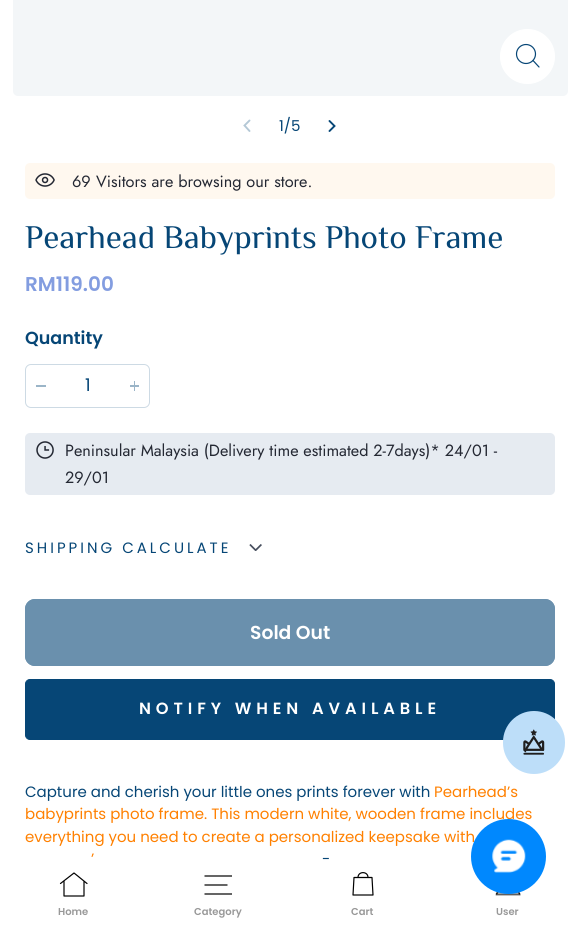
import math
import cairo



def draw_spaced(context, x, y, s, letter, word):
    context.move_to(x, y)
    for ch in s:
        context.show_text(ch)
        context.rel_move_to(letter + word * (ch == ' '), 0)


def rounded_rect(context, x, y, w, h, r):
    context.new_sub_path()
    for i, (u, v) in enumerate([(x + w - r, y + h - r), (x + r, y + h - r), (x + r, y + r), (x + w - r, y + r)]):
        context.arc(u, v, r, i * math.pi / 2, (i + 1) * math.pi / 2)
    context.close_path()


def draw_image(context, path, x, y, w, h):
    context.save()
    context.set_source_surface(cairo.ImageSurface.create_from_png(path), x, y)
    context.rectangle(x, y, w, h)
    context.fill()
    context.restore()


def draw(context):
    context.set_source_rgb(1, 1, 1)
    context.paint()
    context.set_source_rgb(243 / 255, 246 / 255, 248 / 255)
    rounded_rect(context, 13, -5, 555, 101, 5)
    context.fill()
    context.set_source_rgb(1, 1, 1)
    context.arc(527.5, 56.5, 27, 0, 2 * math.pi)
    context.fill_preserve()
    context.set_line_width(1)
    context.stroke()
    context.arc(526, 54, 9.5, 0, 2 * math.pi)
    context.set_source_rgb(6 / 255, 70 / 255, 118 / 255)
    context.set_line_width(1.2)
    context.stroke()
    context.new_path()
    context.move_to(533, 60.5)
    context.line_to(539, 67)
    context.set_line_cap(cairo.LineCap.ROUND)
    context.stroke()
    context.new_path()
    context.move_to(249.5, 120.5)
    context.line_to(244.5, 125.5)
    context.line_to(249.5, 131)
    context.set_source_rgb(180 / 255, 200 / 255, 214 / 255)
    context.set_line_width(1.9)
    context.stroke()
    context.new_path()
    context.move_to(329.5, 131)
    context.line_to(334.5, 126)
    context.line_to(329.5, 121)
    context.set_source_rgb(6 / 255, 70 / 255, 118 / 255)
    context.stroke()
    context.set_source_rgb(1, 248 / 255, 239 / 255)
    rounded_rect(context, 25, 163, 530, 36, 5)
    context.fill()
    draw_image(context, "images/1.png", 35, 173, 20, 14)
    context.set_source_rgb(155 / 255, 181 / 255, 200 / 255)
    context.rectangle(36, 385, 10, 2)
    context.fill()
    context.rectangle(134, 381, 1, 10)
    context.fill()
    context.rectangle(130, 385, 9, 2)
    context.fill()
    rounded_rect(context, 25.5, 364.5, 124, 43, 5.5)
    context.set_source_rgb(205 / 255, 218 / 255, 228 / 255)
    context.set_line_width(1)
    context.set_line_cap(cairo.LineCap.BUTT)
    context.stroke()
    context.set_source_rgb(230 / 255, 235 / 255, 241 / 255)
    rounded_rect(context, 25, 433, 530, 62, 5)
    context.fill()
    draw_image(context, "images/2.png", 36, 441, 18, 18)
    draw_image(context, "images/3.png", 249, 544, 13, 7)
    context.set_source_rgb(106 / 255, 144 / 255, 173 / 255)
    rounded_rect(context, 25, 599, 530, 67, 10)
    context.fill()
    rounded_rect(context, 27.5, 601.5, 525, 62, 7.5)
    context.set_line_width(5)
    context.stroke()
    context.set_source_rgb(6 / 255, 70 / 255, 118 / 255)
    rounded_rect(context, 25.5, 679.5, 529, 60, 4.5)
    context.fill_preserve()
    context.set_line_width(1)
    context.stroke()
    context.set_source_rgb(189 / 255, 222 / 255, 249 / 255)
    rounded_rect(context, 503, 711, 62, 63, 31)
    context.fill()
    draw_image(context, "images/4.png", 523, 729, 22, 26)
    context.new_path()
    context.move_to(87, 883.5)
    context.line_to(74, 873)
    context.line_to(60.5, 883.5)
    context.move_to(84, 881)
    context.line_to(84, 896)
    context.line_to(64, 896)
    context.line_to(64, 881)
    context.set_source_rgb(0, 0, 0)
    context.set_line_width(1.2)
    context.set_line_cap(cairo.LineCap.ROUND)
    context.set_line_join(cairo.LineJoin.ROUND)
    context.stroke()
    context.new_path()
    context.move_to(204.5, 876)
    context.line_to(232, 876)
    context.move_to(204.5, 885)
    context.line_to(227.5, 885)
    context.move_to(204.5, 894)
    context.line_to(232, 894)
    context.set_line_cap(cairo.LineCap.BUTT)
    context.set_line_join(cairo.LineJoin.MITER)
    context.stroke()
    context.new_path()
    context.move_to(353, 895)
    context.line_to(354, 877.5)
    context.line_to(372, 877.5)
    context.line_to(373, 895)
    context.close_path()
    context.move_to(358, 877.5)
    context.curve_to(358, 871, 368, 871, 368, 877.5)
    context.set_line_cap(cairo.LineCap.ROUND)
    context.set_line_join(cairo.LineJoin.ROUND)
    context.stroke()
    draw_image(context, "images/6.png", 495, 891, 26, 5)
    context.select_font_face("Poppins")
    context.set_font_size(15)
    context.set_source_rgb(6 / 255, 70 / 255, 118 / 255)
    context.move_to(279, 131)
    context.show_text("1/5")
    context.select_font_face("Jost")
    context.set_font_size(16.25)
    context.set_source_rgb(36 / 255, 40 / 255, 51 / 255)
    context.move_to(72, 187)
    context.show_text("69")
    context.move_to(96, 187)
    context.show_text("Visitors are browsing our store.")
    context.select_font_face("El Messiri")
    context.set_font_size(33)
    context.set_source_rgb(6 / 255, 70 / 255, 118 / 255)
    context.move_to(25, 248)
    context.show_text("Pearhead Babyprints Photo Frame")
    context.select_font_face("Poppins SemiBold")
    context.set_font_size(20)
    context.set_source_rgb(131 / 255, 157 / 255, 224 / 255)
    context.move_to(25, 291)
    context.show_text("RM119.00")
    context.set_font_size(17.5)
    context.set_source_rgb(6 / 255, 70 / 255, 118 / 255)
    context.move_to(25, 344)
    context.show_text("Quantity")
    context.select_font_face("Poppins")
    context.move_to(85, 391)
    context.show_text("1")
    context.select_font_face("Jost")
    context.set_font_size(16.25)
    context.set_source_rgb(36 / 255, 40 / 255, 51 / 255)
    context.move_to(65, 456)
    context.show_text("Peninsular Malaysia (Delivery time estimated 2-7days)* 24/01 -")
    context.move_to(65, 483)
    context.show_text("29/01")
    context.select_font_face("Poppins")
    context.set_font_size(15)
    context.set_source_rgb(6 / 255, 70 / 255, 118 / 255)
    draw_spaced(context, 25, 553, "SHIPPING CALCULATE", 3, 0)
    context.select_font_face("Poppins SemiBold")
    context.set_font_size(18.75)
    context.set_source_rgb(1, 1, 1)
    context.move_to(250, 639)
    context.show_text("Sold Out")
    context.set_font_size(16.25)
    draw_spaced(context, 139, 714, "NOTIFY WHEN AVAILABLE", 4.9, 0)
    context.select_font_face("Poppins")
    context.set_font_size(15)
    context.set_source_rgb(6 / 255, 70 / 255, 118 / 255)
    context.move_to(25, 797)
    context.show_text("Capture and cherish your little ones prints forever with")
    context.set_source_rgb(1, 128 / 255, 0)
    context.move_to(434, 797)
    context.show_text("Pearhead’s")
    context.move_to(25, 819)
    context.show_text("babyprints photo frame. This modern white, wooden frame includes")
    context.move_to(25, 842)
    context.show_text("everything you need to create a personalized keepsake with")
    context.move_to(91, 864)
    context.show_text("’")
    context.set_source_rgb(6 / 255, 70 / 255, 118 / 255)
    context.move_to(322, 864)
    context.show_text("-")
    context.set_source_rgb(0, 136 / 255, 254 / 255)
    context.new_path()
    context.arc(508.5, 856.5, 37.5, 0, 2 * math.pi)
    context.fill()
    draw_image(context, "images/5.png", 492, 839, 34, 34)
    context.select_font_face("Poppins SemiBold")
    context.set_font_size(10)
    context.set_source_rgb(153 / 255, 153 / 255, 153 / 255)
    context.move_to(58, 915)
    context.show_text("Home")
    context.move_to(194, 915)
    context.show_text("Category")
    context.move_to(351, 915)
    context.show_text("Cart")
    context.move_to(496, 915)
    context.show_text("User")


surface = cairo.ImageSurface(cairo.Format.RGB24, 579, 928)
context = cairo.Context(surface)
options = cairo.FontOptions()
options.set_hint_metrics(cairo.HintMetrics.OFF)
options.set_hint_style(cairo.HintStyle.NONE)
context.set_font_options(options)
context.set_miter_limit(4)
draw(context)
surface.write_to_png("out.png")
